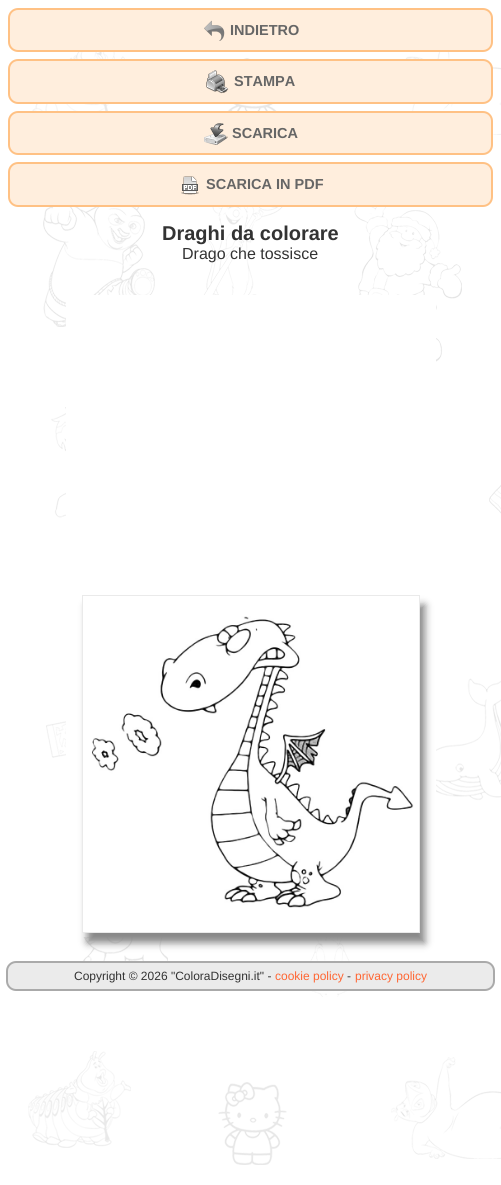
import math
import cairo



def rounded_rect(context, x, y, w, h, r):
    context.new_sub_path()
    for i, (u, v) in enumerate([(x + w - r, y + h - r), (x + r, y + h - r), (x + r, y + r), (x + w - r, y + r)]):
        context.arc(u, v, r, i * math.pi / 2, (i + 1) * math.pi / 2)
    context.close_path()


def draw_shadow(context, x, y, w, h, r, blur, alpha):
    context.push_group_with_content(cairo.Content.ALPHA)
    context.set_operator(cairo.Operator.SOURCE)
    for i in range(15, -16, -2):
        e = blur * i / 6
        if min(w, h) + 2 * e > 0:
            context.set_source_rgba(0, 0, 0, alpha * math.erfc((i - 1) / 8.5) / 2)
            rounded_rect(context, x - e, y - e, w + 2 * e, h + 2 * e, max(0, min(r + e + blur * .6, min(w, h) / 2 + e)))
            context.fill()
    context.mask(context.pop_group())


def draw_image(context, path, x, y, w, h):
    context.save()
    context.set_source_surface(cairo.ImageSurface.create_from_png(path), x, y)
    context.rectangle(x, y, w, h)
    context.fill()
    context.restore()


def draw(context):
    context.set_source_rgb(1, 1, 1)
    context.paint()
    draw_image(context, "images/1.png", 28, 27, 473, 1138)
    context.set_source_rgb(1, 238 / 255, 221 / 255)
    rounded_rect(context, 9, 9, 483, 42, 9)
    context.fill_preserve()
    context.set_source_rgb(1, 193 / 255, 132 / 255)
    context.stroke()
    draw_image(context, "images/2.png", 204, 20, 21, 21)
    context.set_source_rgb(1, 238 / 255, 221 / 255)
    rounded_rect(context, 9, 60, 483, 43, 9)
    context.fill_preserve()
    context.set_source_rgb(1, 193 / 255, 132 / 255)
    context.stroke()
    draw_image(context, "images/3.png", 206, 70, 23, 24)
    context.set_source_rgb(1, 238 / 255, 221 / 255)
    rounded_rect(context, 9, 112, 483, 42, 9)
    context.fill_preserve()
    context.set_source_rgb(1, 193 / 255, 132 / 255)
    context.stroke()
    draw_image(context, "images/4.png", 204, 123, 24, 22)
    context.set_source_rgb(1, 238 / 255, 221 / 255)
    rounded_rect(context, 9, 163, 483, 43, 9)
    context.fill_preserve()
    context.set_source_rgb(1, 193 / 255, 132 / 255)
    context.stroke()
    draw_image(context, "images/5.png", 181, 176, 18, 19)
    context.set_source_rgb(1, 1, 1)
    context.rectangle(66, 295, 370, 642)
    context.fill()
    context.save()
    context.set_fill_rule(cairo.FillRule.EVEN_ODD)
    context.new_path()
    context.move_to(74, 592)
    context.line_to(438, 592)
    context.line_to(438, 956)
    context.line_to(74, 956)
    context.close_path()
    context.move_to(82, 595)
    context.line_to(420, 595)
    context.line_to(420, 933)
    context.line_to(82, 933)
    context.close_path()
    context.clip()
    context.set_source_rgb(136 / 255, 136 / 255, 136 / 255)
    draw_shadow(context, 87, 605, 338, 338, 0, 4, 1)
    context.restore()
    context.rectangle(82.5, 595.5, 337, 337)
    context.set_source_rgb(234 / 255, 234 / 255, 234 / 255)
    context.set_line_width(1)
    context.stroke()
    draw_image(context, "images/6.png", 92, 616, 322, 292)
    context.set_source_rgb(235 / 255, 235 / 255, 235 / 255)
    rounded_rect(context, 7, 962, 487, 28, 9)
    context.fill_preserve()
    context.set_source_rgb(170 / 255, 170 / 255, 170 / 255)
    context.set_line_width(2)
    context.stroke()
    context.select_font_face("Liberation Sans", cairo.FontSlant.NORMAL, cairo.FontWeight.BOLD)
    context.set_font_size(14.5)
    context.set_source_rgb(102 / 255, 102 / 255, 102 / 255)
    context.move_to(230, 35)
    context.show_text("INDIETRO")
    context.move_to(234, 86)
    context.show_text("STAMPA")
    context.move_to(232, 138)
    context.show_text("SCARICA")
    context.move_to(206, 189)
    context.show_text("SCARICA IN PDF")
    context.set_font_size(20)
    context.set_source_rgb(51 / 255, 51 / 255, 51 / 255)
    context.move_to(162, 240)
    context.show_text("Draghi da colorare")
    context.select_font_face("Liberation Sans")
    context.set_font_size(16)
    context.move_to(182, 259)
    context.show_text("Drago che tossisce")
    context.set_font_size(12)
    context.move_to(74, 980)
    context.show_text("Copyright © 2026 \"ColoraDisegni.it\" -")
    context.set_source_rgb(1, 102 / 255, 51 / 255)
    context.move_to(275, 980)
    context.show_text("cookie policy")
    context.set_source_rgb(51 / 255, 51 / 255, 51 / 255)
    context.move_to(347, 980)
    context.show_text("-")
    context.set_source_rgb(1, 102 / 255, 51 / 255)
    context.move_to(355, 980)
    context.show_text("privacy policy")


surface = cairo.ImageSurface(cairo.Format.RGB24, 501, 1185)
context = cairo.Context(surface)
options = cairo.FontOptions()
options.set_hint_metrics(cairo.HintMetrics.OFF)
options.set_hint_style(cairo.HintStyle.NONE)
context.set_font_options(options)
context.set_miter_limit(4)
draw(context)
surface.write_to_png("out.png")
